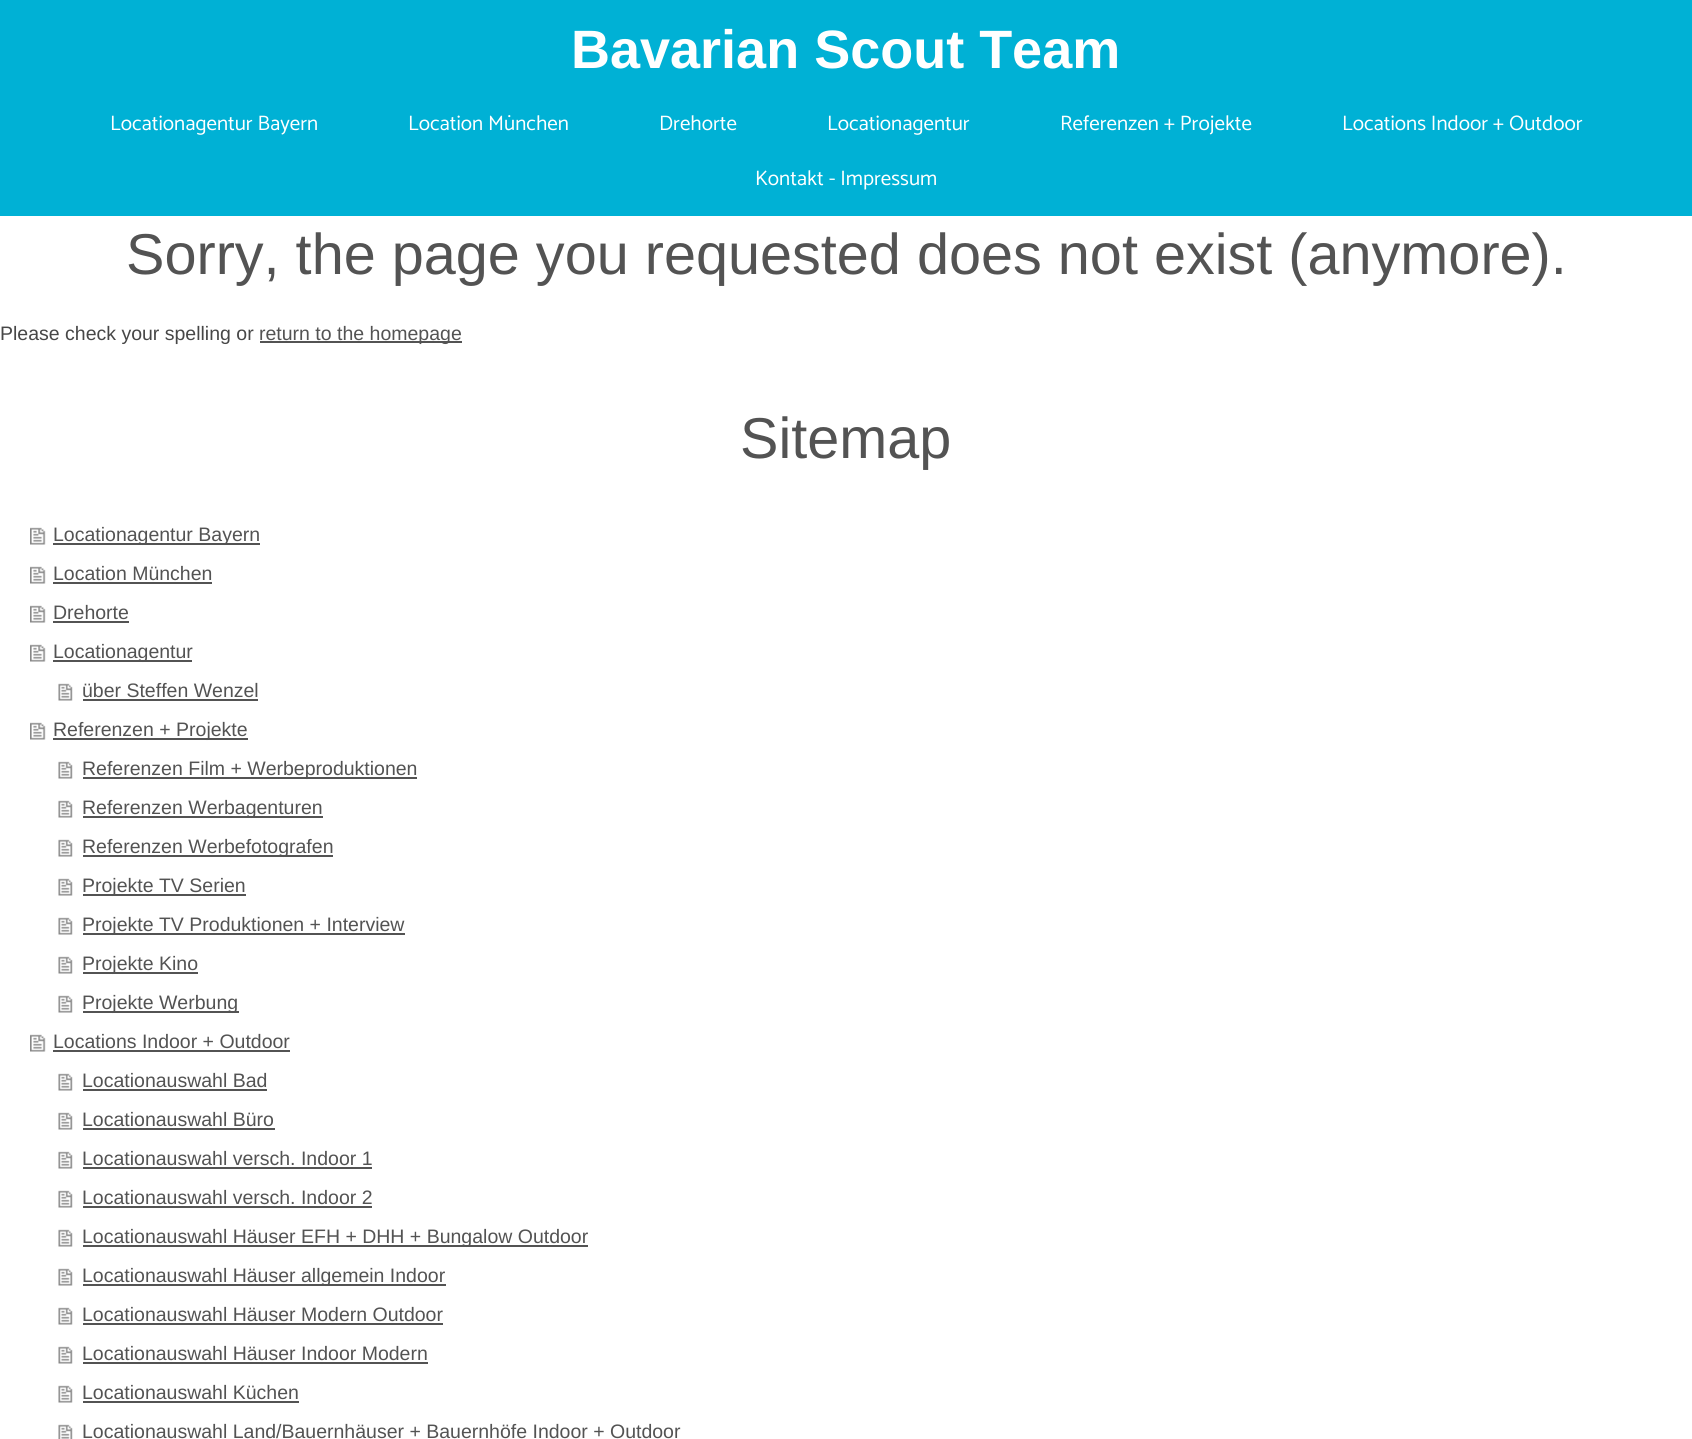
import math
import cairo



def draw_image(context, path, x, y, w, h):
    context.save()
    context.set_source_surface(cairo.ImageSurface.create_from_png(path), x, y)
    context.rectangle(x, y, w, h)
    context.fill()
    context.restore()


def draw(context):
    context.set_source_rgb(1, 1, 1)
    context.paint()
    context.set_source_rgb(0, 177 / 255, 213 / 255)
    context.rectangle(0, 0, 1692, 216)
    context.fill()
    context.set_source_rgb(83 / 255, 83 / 255, 83 / 255)
    context.rectangle(260, 341, 202, 2)
    context.fill()
    draw_image(context, "images/1.png", 30, 527, 16, 18)
    context.rectangle(53, 543, 207, 2)
    context.fill()
    draw_image(context, "images/1.png", 30, 566, 16, 18)
    context.rectangle(53, 582, 159, 2)
    context.fill()
    draw_image(context, "images/1.png", 30, 605, 16, 18)
    context.rectangle(53, 621, 76, 2)
    context.fill()
    draw_image(context, "images/1.png", 30, 644, 16, 18)
    context.rectangle(53, 660, 139, 2)
    context.fill()
    draw_image(context, "images/2.png", 58, 683, 15, 18)
    context.rectangle(83, 699, 175, 2)
    context.fill()
    draw_image(context, "images/1.png", 30, 722, 16, 18)
    context.rectangle(53, 738, 195, 2)
    context.fill()
    draw_image(context, "images/2.png", 58, 761, 15, 18)
    context.rectangle(83, 777, 334, 2)
    context.fill()
    draw_image(context, "images/2.png", 58, 800, 15, 18)
    context.rectangle(83, 816, 240, 2)
    context.fill()
    draw_image(context, "images/2.png", 58, 839, 15, 18)
    context.rectangle(83, 855, 250, 2)
    context.fill()
    draw_image(context, "images/2.png", 58, 878, 15, 18)
    context.rectangle(83, 894, 163, 2)
    context.fill()
    draw_image(context, "images/2.png", 58, 917, 15, 18)
    context.rectangle(83, 933, 322, 2)
    context.fill()
    draw_image(context, "images/2.png", 58, 956, 15, 18)
    context.rectangle(83, 972, 115, 2)
    context.fill()
    draw_image(context, "images/2.png", 58, 995, 15, 18)
    context.rectangle(83, 1011, 156, 2)
    context.fill()
    draw_image(context, "images/1.png", 30, 1034, 16, 18)
    context.rectangle(53, 1050, 237, 2)
    context.fill()
    draw_image(context, "images/2.png", 58, 1073, 15, 18)
    context.rectangle(83, 1089, 184, 2)
    context.fill()
    draw_image(context, "images/2.png", 58, 1112, 15, 18)
    context.rectangle(83, 1128, 192, 2)
    context.fill()
    draw_image(context, "images/2.png", 58, 1151, 15, 18)
    context.rectangle(83, 1167, 289, 2)
    context.fill()
    draw_image(context, "images/2.png", 58, 1190, 15, 18)
    context.rectangle(83, 1206, 289, 2)
    context.fill()
    draw_image(context, "images/2.png", 58, 1229, 15, 18)
    context.rectangle(83, 1245, 505, 2)
    context.fill()
    draw_image(context, "images/2.png", 58, 1268, 15, 18)
    context.rectangle(83, 1284, 363, 2)
    context.fill()
    draw_image(context, "images/2.png", 58, 1307, 15, 18)
    context.rectangle(83, 1323, 360, 2)
    context.fill()
    draw_image(context, "images/2.png", 58, 1346, 15, 18)
    context.rectangle(83, 1362, 345, 2)
    context.fill()
    draw_image(context, "images/2.png", 58, 1385, 15, 18)
    context.rectangle(83, 1401, 216, 2)
    context.fill()
    draw_image(context, "images/3.png", 58, 1424, 15, 15)
    context.select_font_face("Liberation Sans", cairo.FontSlant.NORMAL, cairo.FontWeight.BOLD)
    context.set_font_size(54)
    context.set_source_rgb(1, 1, 1)
    context.move_to(571, 68)
    context.show_text("Bavarian Scout Team")
    context.select_font_face("Catamaran")
    context.set_font_size(21)
    context.move_to(110, 130)
    context.show_text("Locationagentur Bayern")
    context.move_to(408, 130)
    context.show_text("Location München")
    context.move_to(659, 130)
    context.show_text("Drehorte")
    context.move_to(827, 130)
    context.show_text("Locationagentur")
    context.move_to(1060, 130)
    context.show_text("Referenzen + Projekte")
    context.move_to(1342, 130)
    context.show_text("Locations Indoor + Outdoor")
    context.move_to(755, 185)
    context.show_text("Kontakt - Impressum")
    context.select_font_face("Liberation Sans")
    context.set_font_size(57.6)
    context.set_source_rgb(83 / 255, 83 / 255, 83 / 255)
    context.move_to(126, 274)
    context.show_text("Sorry, the page you requested does not exist (anymore).")
    context.set_font_size(19.5)
    context.set_source_rgb(71 / 255, 71 / 255, 71 / 255)
    context.move_to(0, 340)
    context.show_text("Please check your spelling or")
    context.set_source_rgb(83 / 255, 83 / 255, 83 / 255)
    context.move_to(259, 340)
    context.show_text("return to the homepage")
    context.set_font_size(57.6)
    context.move_to(740, 458)
    context.show_text("Sitemap")
    context.set_font_size(19.5)
    context.move_to(53, 541)
    context.show_text("Locationagentur Bayern")
    context.move_to(53, 580)
    context.show_text("Location München")
    context.move_to(53, 619)
    context.show_text("Drehorte")
    context.move_to(53, 658)
    context.show_text("Locationagentur")
    context.move_to(82, 697)
    context.show_text("über Steffen Wenzel")
    context.move_to(53, 736)
    context.show_text("Referenzen + Projekte")
    context.move_to(82, 775)
    context.show_text("Referenzen Film + Werbeproduktionen")
    context.move_to(82, 814)
    context.show_text("Referenzen Werbagenturen")
    context.move_to(82, 853)
    context.show_text("Referenzen Werbefotografen")
    context.move_to(82, 892)
    context.show_text("Projekte TV Serien")
    context.move_to(82, 931)
    context.show_text("Projekte TV Produktionen + Interview")
    context.move_to(82, 970)
    context.show_text("Projekte Kino")
    context.move_to(82, 1009)
    context.show_text("Projekte Werbung")
    context.move_to(53, 1048)
    context.show_text("Locations Indoor + Outdoor")
    context.move_to(82, 1087)
    context.show_text("Locationauswahl Bad")
    context.move_to(82, 1126)
    context.show_text("Locationauswahl Büro")
    context.move_to(82, 1165)
    context.show_text("Locationauswahl versch. Indoor 1")
    context.move_to(82, 1204)
    context.show_text("Locationauswahl versch. Indoor 2")
    context.move_to(82, 1243)
    context.show_text("Locationauswahl Häuser EFH + DHH + Bungalow Outdoor")
    context.move_to(82, 1282)
    context.show_text("Locationauswahl Häuser allgemein Indoor")
    context.move_to(82, 1321)
    context.show_text("Locationauswahl Häuser Modern Outdoor")
    context.move_to(82, 1360)
    context.show_text("Locationauswahl Häuser Indoor Modern")
    context.move_to(82, 1399)
    context.show_text("Locationauswahl Küchen")
    context.move_to(82, 1438)
    context.show_text("Locationauswahl Land/Bauernhäuser + Bauernhöfe Indoor + Outdoor")


surface = cairo.ImageSurface(cairo.Format.RGB24, 1692, 1439)
context = cairo.Context(surface)
options = cairo.FontOptions()
options.set_hint_metrics(cairo.HintMetrics.OFF)
options.set_hint_style(cairo.HintStyle.NONE)
context.set_font_options(options)
context.set_miter_limit(4)
draw(context)
surface.write_to_png("out.png")
